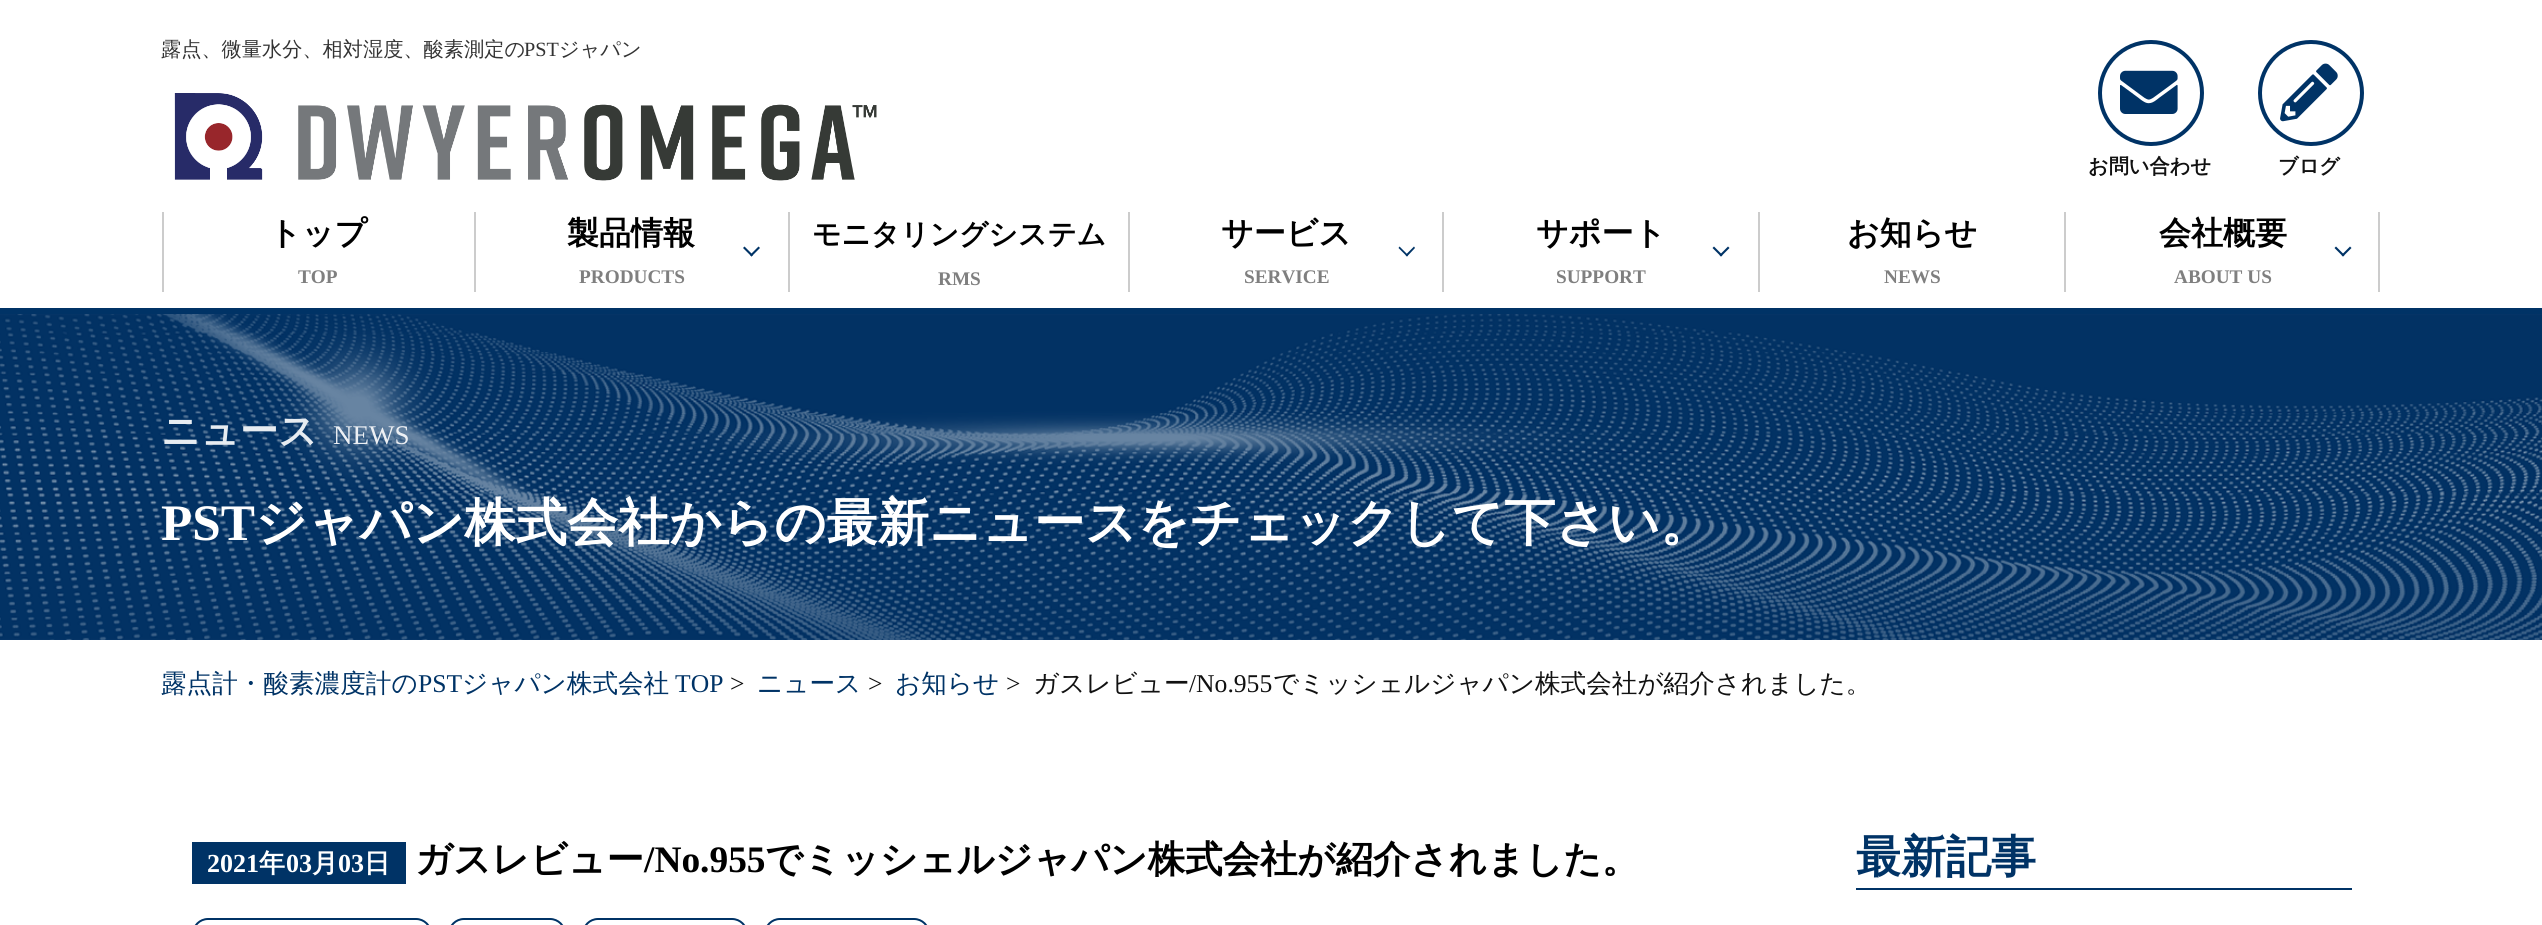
import math
import cairo



def rounded_rect(context, x, y, w, h, r):
    context.new_sub_path()
    for i, (u, v) in enumerate([(x + w - r, y + h - r), (x + r, y + h - r), (x + r, y + r), (x + w - r, y + r)]):
        context.arc(u, v, r, i * math.pi / 2, (i + 1) * math.pi / 2)
    context.close_path()


def draw_image(context, path, x, y, w, h):
    context.save()
    context.set_source_surface(cairo.ImageSurface.create_from_png(path), x, y)
    context.rectangle(x, y, w, h)
    context.fill()
    context.restore()


def draw(context):
    context.set_source_rgb(1, 1, 1)
    context.paint()
    draw_image(context, "images/1.png", 174, 93, 703, 88)
    context.arc(2151, 93, 51, 0, 2 * math.pi)
    context.set_source_rgb(0, 51 / 255, 102 / 255)
    context.set_line_width(4)
    context.stroke()
    draw_image(context, "images/2.png", 2120, 70, 58, 44)
    context.arc(2311, 93, 51, 0, 2 * math.pi)
    context.stroke()
    draw_image(context, "images/3.png", 2280, 63, 58, 59)
    context.set_source_rgb(204 / 255, 204 / 255, 204 / 255)
    context.rectangle(474, 212, 2, 80)
    context.fill()
    context.rectangle(162, 212, 2, 80)
    context.fill()
    context.rectangle(788, 212, 2, 80)
    context.fill()
    context.set_source_rgb(0, 51 / 255, 102 / 255)
    context.new_path()
    context.move_to(758.5, 246.5)
    context.line_to(760, 248)
    context.line_to(751.5, 256.5)
    context.line_to(750, 255)
    context.close_path()
    context.fill()
    context.new_path()
    context.move_to(744.5, 246.5)
    context.line_to(753, 255)
    context.line_to(751.5, 256.5)
    context.line_to(743, 248)
    context.close_path()
    context.fill()
    context.set_source_rgb(204 / 255, 204 / 255, 204 / 255)
    context.rectangle(1128, 212, 2, 80)
    context.fill()
    context.rectangle(1442, 212, 2, 80)
    context.fill()
    context.set_source_rgb(0, 51 / 255, 102 / 255)
    context.new_path()
    context.move_to(1414, 246.5)
    context.line_to(1415, 248)
    context.line_to(1407, 256.5)
    context.line_to(1405.5, 255)
    context.close_path()
    context.fill()
    context.new_path()
    context.move_to(1399.5, 246.5)
    context.line_to(1408, 255)
    context.line_to(1407, 256.5)
    context.line_to(1398.5, 248)
    context.close_path()
    context.fill()
    context.set_source_rgb(204 / 255, 204 / 255, 204 / 255)
    context.rectangle(1758, 212, 2, 80)
    context.fill()
    context.set_source_rgb(0, 51 / 255, 102 / 255)
    context.new_path()
    context.move_to(1728, 246.5)
    context.line_to(1729.5, 248)
    context.line_to(1721, 256.5)
    context.line_to(1719.5, 255)
    context.close_path()
    context.fill()
    context.new_path()
    context.move_to(1714, 246.5)
    context.line_to(1722.5, 255)
    context.line_to(1721, 256.5)
    context.line_to(1712.5, 248)
    context.close_path()
    context.fill()
    context.set_source_rgb(204 / 255, 204 / 255, 204 / 255)
    context.rectangle(2064, 212, 2, 80)
    context.fill()
    context.rectangle(2378, 212, 2, 80)
    context.fill()
    context.set_source_rgb(0, 51 / 255, 102 / 255)
    context.new_path()
    context.move_to(2350, 246.5)
    context.line_to(2351.5, 248)
    context.line_to(2343, 256.5)
    context.line_to(2341.5, 255)
    context.close_path()
    context.fill()
    context.new_path()
    context.move_to(2336, 246.5)
    context.line_to(2344.5, 255)
    context.line_to(2343, 256.5)
    context.line_to(2334.5, 248)
    context.close_path()
    context.fill()
    draw_image(context, "images/4.png", 0, 314, 2542, 326)
    context.rectangle(0, 308, 2542, 6)
    context.fill()
    context.rectangle(192, 842, 214, 42)
    context.fill()
    rounded_rect(context, 193, 919, 238, 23, 15)
    context.set_line_width(2)
    context.stroke()
    rounded_rect(context, 449, 919, 116, 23, 15)
    context.stroke()
    rounded_rect(context, 583, 919, 164, 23, 15)
    context.stroke()
    rounded_rect(context, 765, 919, 164, 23, 15)
    context.stroke()
    context.rectangle(1856, 888, 496, 2)
    context.fill()
    context.select_font_face("WenQuanYi Zen Hei Medium")
    context.set_font_size(20.2)
    context.set_source_rgb(51 / 255, 51 / 255, 51 / 255)
    context.move_to(161, 56)
    context.show_text("露点、微量水分、相対湿度、酸素測定の")
    context.select_font_face("Liberation Serif")
    context.move_to(524, 56)
    context.show_text("PST")
    context.select_font_face("WenQuanYi Zen Hei Medium")
    context.move_to(559, 56)
    context.show_text("ジャパン")
    context.select_font_face("WenQuanYi Zen Hei", cairo.FontSlant.NORMAL, cairo.FontWeight.BOLD)
    context.set_source_rgb(17 / 255, 17 / 255, 17 / 255)
    context.move_to(2088, 173)
    context.show_text("お問い合わせ")
    context.move_to(2278, 173)
    context.show_text("ブログ")
    context.set_font_size(32)
    context.set_source_rgb(0, 0, 0)
    context.move_to(269, 244)
    context.show_text("トップ")
    context.select_font_face("Liberation Serif", cairo.FontSlant.NORMAL, cairo.FontWeight.BOLD)
    context.set_font_size(19.25)
    context.set_source_rgb(127 / 255, 127 / 255, 127 / 255)
    context.move_to(298, 283)
    context.show_text("TOP")
    context.select_font_face("WenQuanYi Zen Hei", cairo.FontSlant.NORMAL, cairo.FontWeight.BOLD)
    context.set_font_size(32)
    context.set_source_rgb(0, 0, 0)
    context.move_to(567, 244)
    context.show_text("製品情報")
    context.select_font_face("Liberation Serif", cairo.FontSlant.NORMAL, cairo.FontWeight.BOLD)
    context.set_font_size(19.25)
    context.set_source_rgb(127 / 255, 127 / 255, 127 / 255)
    context.move_to(579, 283)
    context.show_text("PRODUCTS")
    context.select_font_face("WenQuanYi Zen Hei", cairo.FontSlant.NORMAL, cairo.FontWeight.BOLD)
    context.set_font_size(28.75)
    context.set_source_rgb(0, 0, 0)
    context.move_to(812, 244)
    context.show_text("モニタリングシステム")
    context.select_font_face("Liberation Serif", cairo.FontSlant.NORMAL, cairo.FontWeight.BOLD)
    context.set_font_size(19.25)
    context.set_source_rgb(127 / 255, 127 / 255, 127 / 255)
    context.move_to(938, 285)
    context.show_text("RMS")
    context.select_font_face("WenQuanYi Zen Hei", cairo.FontSlant.NORMAL, cairo.FontWeight.BOLD)
    context.set_font_size(32)
    context.set_source_rgb(0, 0, 0)
    context.move_to(1221, 244)
    context.show_text("サービス")
    context.select_font_face("Liberation Serif", cairo.FontSlant.NORMAL, cairo.FontWeight.BOLD)
    context.set_font_size(19.25)
    context.set_source_rgb(127 / 255, 127 / 255, 127 / 255)
    context.move_to(1244, 283)
    context.show_text("SERVICE")
    context.select_font_face("WenQuanYi Zen Hei", cairo.FontSlant.NORMAL, cairo.FontWeight.BOLD)
    context.set_font_size(32)
    context.set_source_rgb(0, 0, 0)
    context.move_to(1536, 244)
    context.show_text("サポート")
    context.select_font_face("Liberation Serif", cairo.FontSlant.NORMAL, cairo.FontWeight.BOLD)
    context.set_font_size(19.25)
    context.set_source_rgb(127 / 255, 127 / 255, 127 / 255)
    context.move_to(1556, 283)
    context.show_text("SUPPORT")
    context.select_font_face("WenQuanYi Zen Hei", cairo.FontSlant.NORMAL, cairo.FontWeight.BOLD)
    context.set_font_size(32)
    context.set_source_rgb(0, 0, 0)
    context.move_to(1847, 244)
    context.show_text("お知らせ")
    context.select_font_face("Liberation Serif", cairo.FontSlant.NORMAL, cairo.FontWeight.BOLD)
    context.set_font_size(19.25)
    context.set_source_rgb(127 / 255, 127 / 255, 127 / 255)
    context.move_to(1884, 283)
    context.show_text("NEWS")
    context.select_font_face("WenQuanYi Zen Hei", cairo.FontSlant.NORMAL, cairo.FontWeight.BOLD)
    context.set_font_size(32)
    context.set_source_rgb(0, 0, 0)
    context.move_to(2159, 244)
    context.show_text("会社概要")
    context.select_font_face("Liberation Serif", cairo.FontSlant.NORMAL, cairo.FontWeight.BOLD)
    context.set_font_size(19.25)
    context.set_source_rgb(127 / 255, 127 / 255, 127 / 255)
    context.move_to(2174, 283)
    context.show_text("ABOUT US")
    context.select_font_face("WenQuanYi Zen Hei", cairo.FontSlant.NORMAL, cairo.FontWeight.BOLD)
    context.set_font_size(38.5)
    context.set_source_rgb(231 / 255, 236 / 255, 241 / 255)
    context.move_to(161, 444)
    context.show_text("ニュース")
    context.select_font_face("Liberation Serif")
    context.set_font_size(27)
    context.set_source_rgb(237 / 255, 240 / 255, 244 / 255)
    context.move_to(333, 444)
    context.show_text("NEWS")
    context.select_font_face("Liberation Serif", cairo.FontSlant.NORMAL, cairo.FontWeight.BOLD)
    context.set_font_size(51.2)
    context.set_source_rgb(1, 1, 1)
    context.move_to(161, 540)
    context.show_text("PST")
    context.select_font_face("WenQuanYi Zen Hei", cairo.FontSlant.NORMAL, cairo.FontWeight.BOLD)
    context.move_to(255, 540)
    context.show_text("ジャパン株式会社からの最新ニュースをチェックして下さい。")
    context.select_font_face("WenQuanYi Zen Hei Medium")
    context.set_font_size(25.6)
    context.set_source_rgb(0, 51 / 255, 102 / 255)
    context.move_to(161, 692)
    context.show_text("露点計・酸素濃度計の")
    context.select_font_face("Liberation Serif")
    context.move_to(418, 692)
    context.show_text("PST")
    context.select_font_face("WenQuanYi Zen Hei Medium")
    context.move_to(462, 692)
    context.show_text("ジャパン株式会社")
    context.select_font_face("Liberation Serif")
    context.move_to(675, 692)
    context.show_text("TOP")
    context.set_source_rgb(17 / 255, 17 / 255, 17 / 255)
    context.move_to(730, 692)
    context.show_text(">")
    context.select_font_face("WenQuanYi Zen Hei Medium")
    context.set_source_rgb(0, 51 / 255, 102 / 255)
    context.move_to(757, 692)
    context.show_text("ニュース")
    context.select_font_face("Liberation Serif")
    context.set_source_rgb(17 / 255, 17 / 255, 17 / 255)
    context.move_to(868, 692)
    context.show_text(">")
    context.select_font_face("WenQuanYi Zen Hei Medium")
    context.set_source_rgb(0, 51 / 255, 102 / 255)
    context.move_to(895, 692)
    context.show_text("お知らせ")
    context.select_font_face("Liberation Serif")
    context.set_source_rgb(17 / 255, 17 / 255, 17 / 255)
    context.move_to(1006, 692)
    context.show_text(">")
    context.select_font_face("WenQuanYi Zen Hei Medium")
    context.move_to(1033, 692)
    context.show_text("ガスレビュー")
    context.select_font_face("Liberation Serif")
    context.move_to(1189, 692)
    context.show_text("/No.955")
    context.select_font_face("WenQuanYi Zen Hei Medium")
    context.move_to(1273, 692)
    context.show_text("でミッシェルジャパン株式会社が紹介されました。")
    context.select_font_face("Liberation Serif", cairo.FontSlant.NORMAL, cairo.FontWeight.BOLD)
    context.set_font_size(26)
    context.set_source_rgb(1, 1, 1)
    context.move_to(207, 872)
    context.show_text("2021")
    context.select_font_face("WenQuanYi Zen Hei", cairo.FontSlant.NORMAL, cairo.FontWeight.BOLD)
    context.move_to(259, 872)
    context.show_text("年")
    context.select_font_face("Liberation Serif", cairo.FontSlant.NORMAL, cairo.FontWeight.BOLD)
    context.move_to(286, 872)
    context.show_text("03")
    context.select_font_face("WenQuanYi Zen Hei", cairo.FontSlant.NORMAL, cairo.FontWeight.BOLD)
    context.move_to(312, 872)
    context.show_text("月")
    context.select_font_face("Liberation Serif", cairo.FontSlant.NORMAL, cairo.FontWeight.BOLD)
    context.move_to(338, 872)
    context.show_text("03")
    context.select_font_face("WenQuanYi Zen Hei", cairo.FontSlant.NORMAL, cairo.FontWeight.BOLD)
    context.move_to(364, 872)
    context.show_text("日")
    context.set_font_size(37.4)
    context.set_source_rgb(0, 0, 0)
    context.move_to(415, 872)
    context.show_text("ガスレビュー")
    context.select_font_face("Liberation Serif", cairo.FontSlant.NORMAL, cairo.FontWeight.BOLD)
    context.move_to(644, 872)
    context.show_text("/No.955")
    context.select_font_face("WenQuanYi Zen Hei", cairo.FontSlant.NORMAL, cairo.FontWeight.BOLD)
    context.move_to(765, 872)
    context.show_text("でミッシェルジャパン株式会社が紹介されました。")
    context.set_font_size(45)
    context.set_source_rgb(0, 51 / 255, 102 / 255)
    context.move_to(1856, 872)
    context.show_text("最新記事")


surface = cairo.ImageSurface(cairo.Format.RGB24, 2542, 925)
context = cairo.Context(surface)
options = cairo.FontOptions()
options.set_hint_metrics(cairo.HintMetrics.OFF)
options.set_hint_style(cairo.HintStyle.NONE)
context.set_font_options(options)
context.set_miter_limit(4)
draw(context)
surface.write_to_png("out.png")
